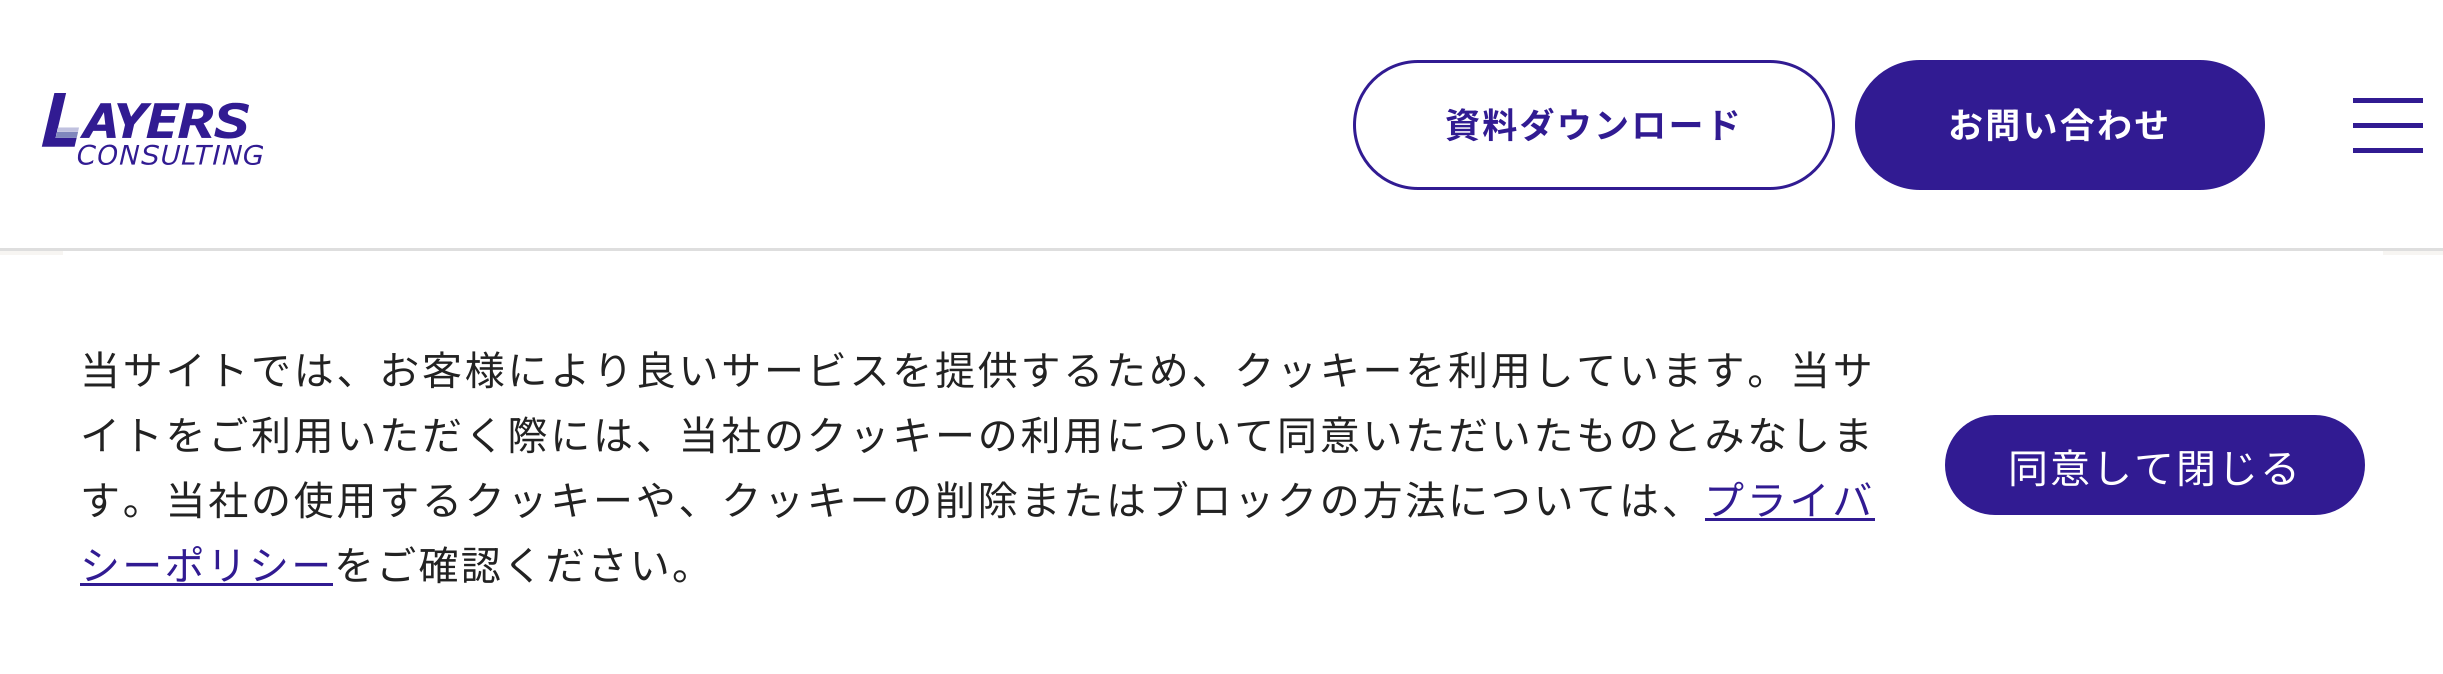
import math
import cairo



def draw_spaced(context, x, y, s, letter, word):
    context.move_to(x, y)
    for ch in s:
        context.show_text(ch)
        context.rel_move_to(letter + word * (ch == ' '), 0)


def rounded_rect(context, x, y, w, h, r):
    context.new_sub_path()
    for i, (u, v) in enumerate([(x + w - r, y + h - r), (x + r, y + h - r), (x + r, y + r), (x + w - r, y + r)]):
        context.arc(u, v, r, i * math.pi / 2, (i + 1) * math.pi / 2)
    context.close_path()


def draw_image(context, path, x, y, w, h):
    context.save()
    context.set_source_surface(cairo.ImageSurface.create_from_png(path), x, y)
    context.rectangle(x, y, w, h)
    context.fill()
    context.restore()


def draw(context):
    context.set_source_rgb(247 / 255, 245 / 255, 242 / 255)
    context.paint()
    context.set_source_rgb(1, 1, 1)
    context.rectangle(0, 0, 2443, 248)
    context.fill()
    context.set_source_rgb(222 / 255, 222 / 255, 222 / 255)
    context.rectangle(0, 248, 2443, 3)
    context.fill()
    draw_image(context, "images/1.png", 41, 93, 222, 72)
    rounded_rect(context, 1354.5, 61.5, 479, 127, 63.5)
    context.set_source_rgb(49 / 255, 27 / 255, 146 / 255)
    context.set_line_width(3)
    context.stroke()
    rounded_rect(context, 1856.5, 61.5, 407, 127, 63.5)
    context.fill_preserve()
    context.stroke()
    context.rectangle(2353, 98, 70, 5)
    context.fill()
    context.rectangle(2353, 123, 70, 5)
    context.fill()
    context.rectangle(2353, 148, 70, 5)
    context.fill()
    context.set_source_rgb(1, 1, 1)
    context.rectangle(63, 251, 2320, 4)
    context.fill()
    context.rectangle(0, 255, 2443, 419)
    context.fill()
    context.set_source_rgb(49 / 255, 27 / 255, 146 / 255)
    context.rectangle(1705, 518, 170, 3)
    context.fill()
    context.rectangle(80, 583, 253, 3)
    context.fill()
    rounded_rect(context, 1946.5, 416.5, 417, 97, 48.5)
    context.fill_preserve()
    context.stroke()
    context.select_font_face("Noto Sans JP", cairo.FontSlant.NORMAL, cairo.FontWeight.BOLD)
    context.set_font_size(35)
    draw_spaced(context, 1445, 138, "資料ダウンロード", 2.25, 0)
    context.set_source_rgb(1, 1, 1)
    draw_spaced(context, 1948, 138, "お問い合わせ", 2.25, 0)
    context.select_font_face("Noto Sans JP")
    context.set_font_size(40)
    context.set_source_rgb(34 / 255, 34 / 255, 34 / 255)
    draw_spaced(context, 80, 385, "当サイトでは、お客様により良いサービスを提供するため、クッキーを利用しています。当サ", 2.75, 0)
    draw_spaced(context, 80, 450, "イトをご利用いただく際には、当社のクッキーの利用について同意いただいたものとみなしま", 2.75, 0)
    draw_spaced(context, 80, 515, "す。当社の使用するクッキーや、クッキーの削除またはブロックの方法については、", 2.75, 0)
    context.set_source_rgb(49 / 255, 27 / 255, 146 / 255)
    draw_spaced(context, 1704, 515, "プライバ", 2.75, 0)
    draw_spaced(context, 80, 580, "シーポリシー", 2.25, 0)
    context.set_source_rgb(34 / 255, 34 / 255, 34 / 255)
    draw_spaced(context, 334, 580, "をご確認ください。", 2.25, 0)
    context.set_source_rgb(1, 1, 1)
    draw_spaced(context, 2008, 483, "同意して閉じる", 2, 0)


surface = cairo.ImageSurface(cairo.Format.RGB24, 2443, 674)
context = cairo.Context(surface)
options = cairo.FontOptions()
options.set_hint_metrics(cairo.HintMetrics.OFF)
options.set_hint_style(cairo.HintStyle.NONE)
context.set_font_options(options)
context.set_miter_limit(4)
draw(context)
surface.write_to_png("out.png")
